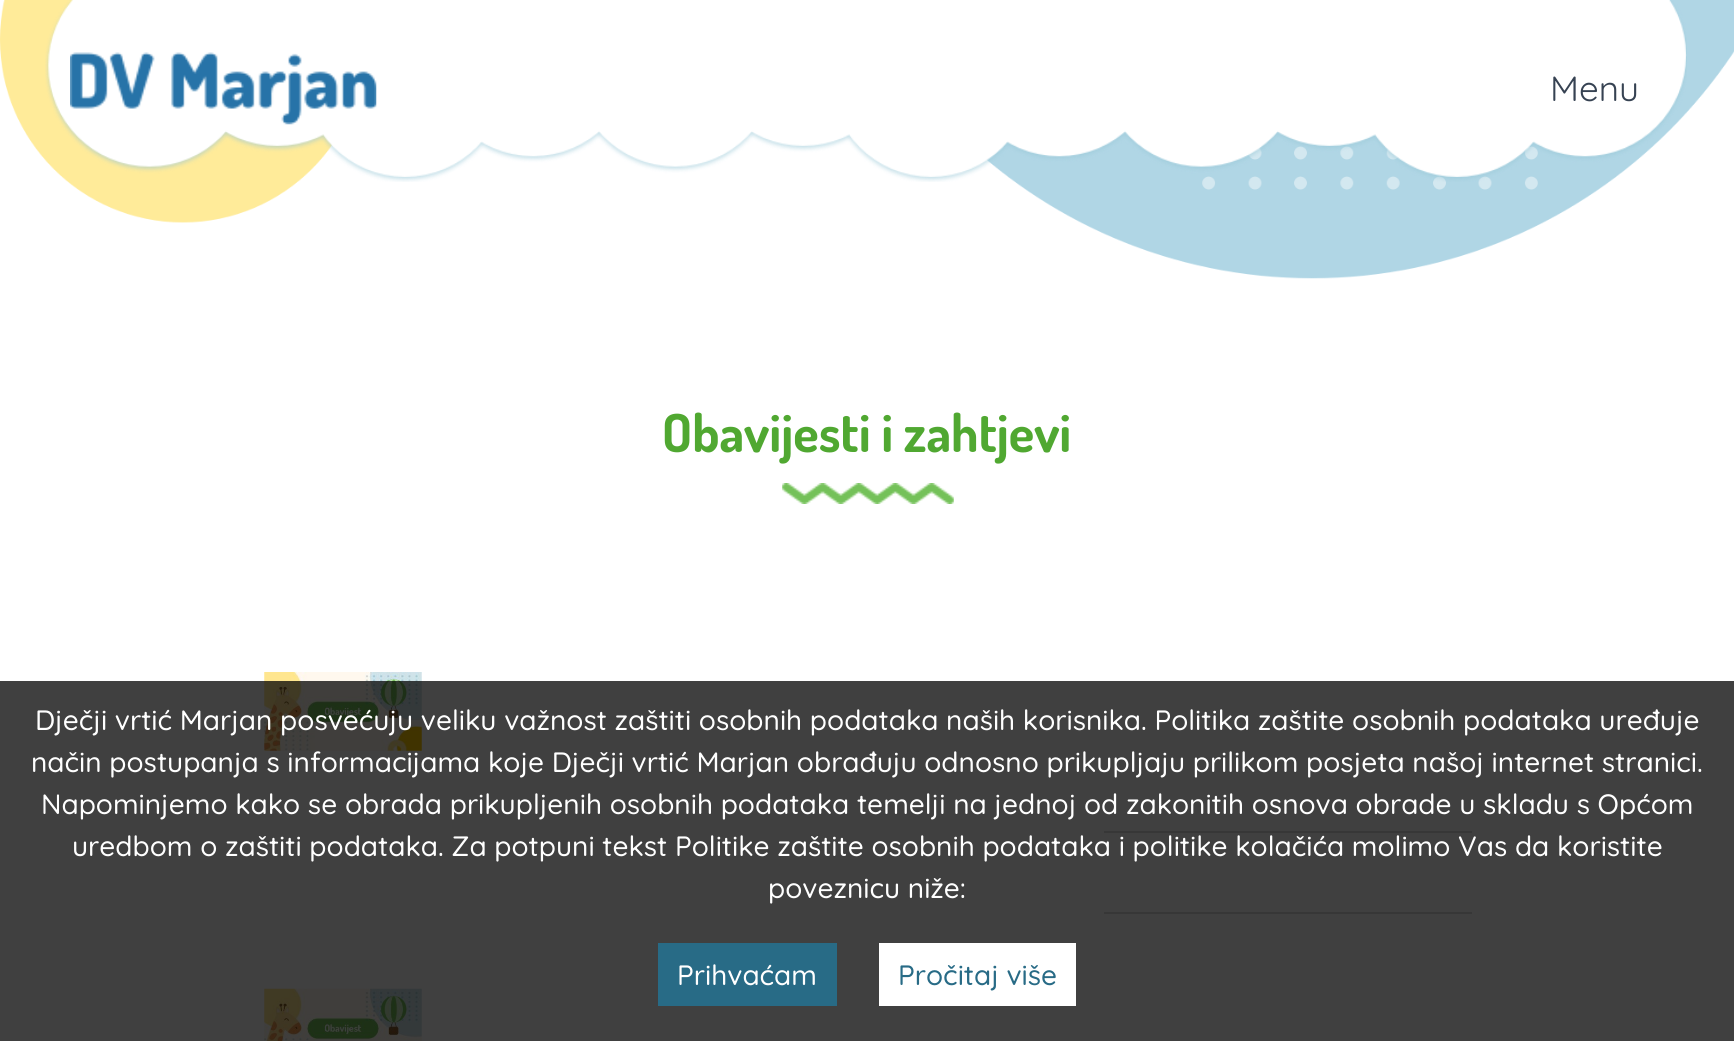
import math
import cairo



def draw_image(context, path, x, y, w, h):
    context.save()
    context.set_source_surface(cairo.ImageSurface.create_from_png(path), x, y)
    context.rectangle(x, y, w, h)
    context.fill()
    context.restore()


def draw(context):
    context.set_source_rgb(1, 1, 1)
    context.paint()
    draw_image(context, "images/1.png", 0, 0, 1734, 279)
    draw_image(context, "images/2.png", 45, 0, 1642, 182)
    draw_image(context, "images/3.png", 70, 52, 307, 73)
    draw_image(context, "images/4.png", 782, 483, 172, 21)
    draw_image(context, "images/5.png", 264, 672, 158, 79)
    draw_image(context, "images/6.png", 264, 988, 158, 53)
    context.set_source_rgb(221 / 255, 221 / 255, 221 / 255)
    context.rectangle(1104, 831, 368, 2)
    context.fill()
    context.rectangle(1104, 912, 368, 2)
    context.fill()
    context.set_source_rgba(0, 0, 0, 0.75)
    context.rectangle(0, 681, 1734, 360)
    context.fill()
    context.set_source_rgb(40 / 255, 107 / 255, 134 / 255)
    context.rectangle(658, 943, 179, 63)
    context.fill()
    context.set_source_rgb(1, 1, 1)
    context.rectangle(879, 943, 197, 63)
    context.fill()
    context.select_font_face("Quicksand")
    context.set_font_size(35)
    context.set_source_rgb(54 / 255, 66 / 255, 82 / 255)
    context.move_to(1550, 101)
    context.show_text("Menu")
    context.select_font_face("Dosis", cairo.FontSlant.NORMAL, cairo.FontWeight.BOLD)
    context.set_font_size(52.5)
    context.set_source_rgb(80 / 255, 168 / 255, 49 / 255)
    context.move_to(662, 452)
    context.show_text("Obavijesti i zahtjevi")
    context.select_font_face("Quicksand Medium")
    context.set_font_size(28)
    context.set_source_rgb(1, 1, 1)
    context.move_to(35, 730)
    context.show_text("Dječji vrtić Marjan posvećuju veliku važnost zaštiti osobnih podataka naših korisnika. Politika zaštite osobnih podataka uređuje")
    context.move_to(31, 772)
    context.show_text("način postupanja s informacijama koje Dječji vrtić Marjan obrađuju odnosno prikupljaju prilikom posjeta našoj internet stranici.")
    context.move_to(41, 814)
    context.show_text("Napominjemo kako se obrada prikupljenih osobnih podataka temelji na jednoj od zakonitih osnova obrade u skladu s Općom")
    context.move_to(72, 856)
    context.show_text("uredbom o zaštiti podataka. Za potpuni tekst Politike zaštite osobnih podataka i politike kolačića molimo Vas da koristite")
    context.move_to(768, 898)
    context.show_text("poveznicu niže:")
    context.move_to(677, 985)
    context.show_text("Prihvaćam")
    context.set_source_rgb(40 / 255, 107 / 255, 134 / 255)
    context.move_to(898, 985)
    context.show_text("Pročitaj više")


surface = cairo.ImageSurface(cairo.Format.RGB24, 1734, 1043)
context = cairo.Context(surface)
options = cairo.FontOptions()
options.set_hint_metrics(cairo.HintMetrics.OFF)
options.set_hint_style(cairo.HintStyle.NONE)
context.set_font_options(options)
context.set_miter_limit(4)
draw(context)
surface.write_to_png("out.png")
